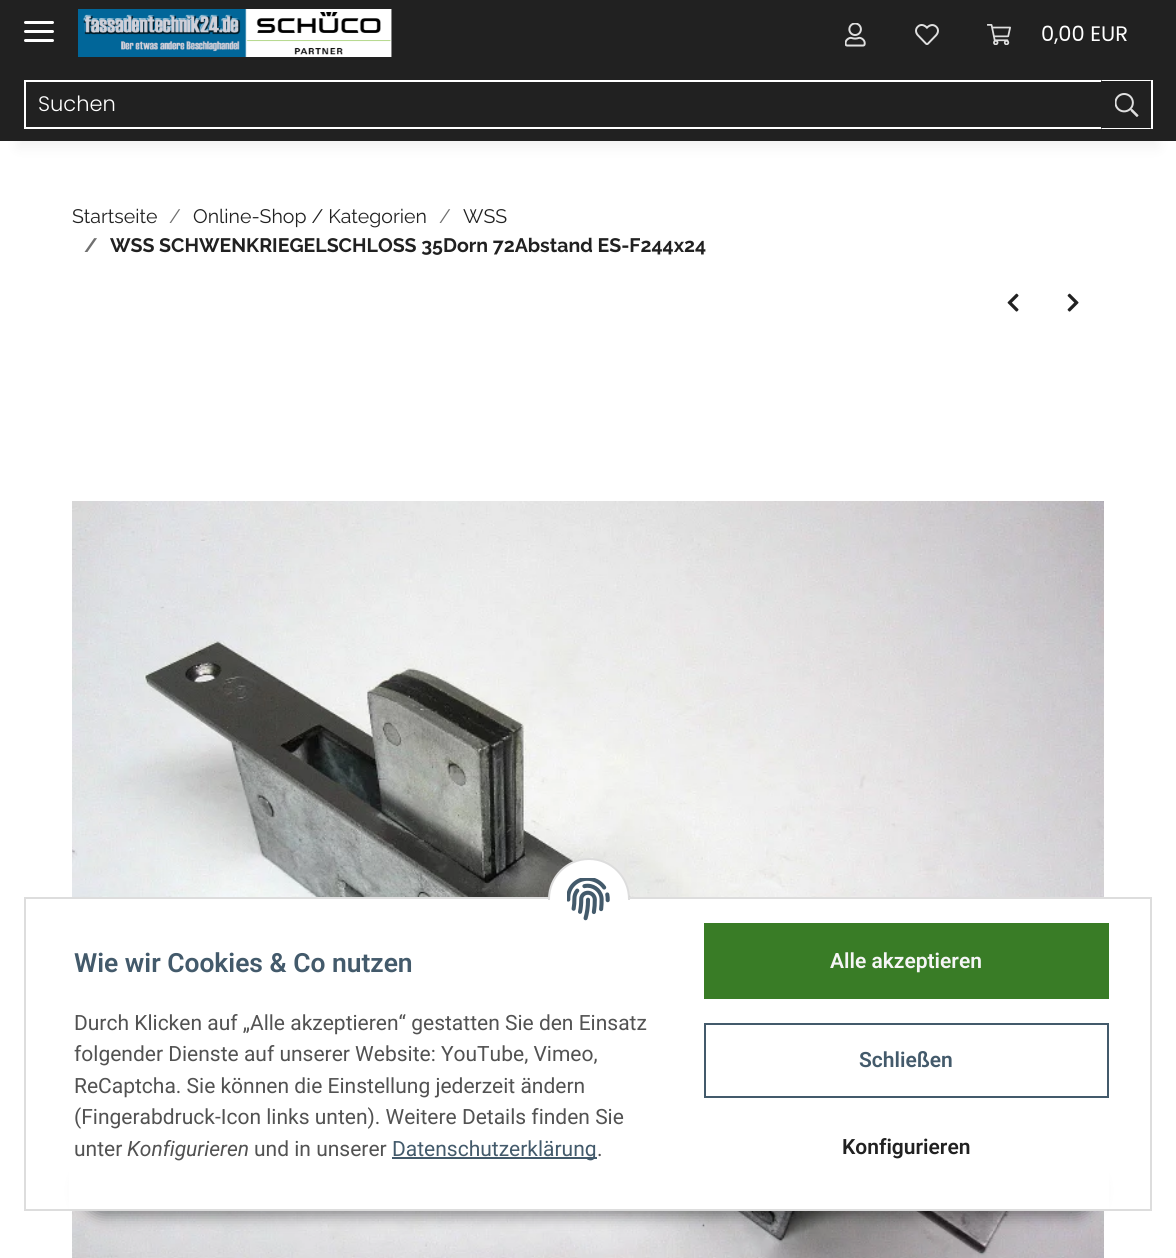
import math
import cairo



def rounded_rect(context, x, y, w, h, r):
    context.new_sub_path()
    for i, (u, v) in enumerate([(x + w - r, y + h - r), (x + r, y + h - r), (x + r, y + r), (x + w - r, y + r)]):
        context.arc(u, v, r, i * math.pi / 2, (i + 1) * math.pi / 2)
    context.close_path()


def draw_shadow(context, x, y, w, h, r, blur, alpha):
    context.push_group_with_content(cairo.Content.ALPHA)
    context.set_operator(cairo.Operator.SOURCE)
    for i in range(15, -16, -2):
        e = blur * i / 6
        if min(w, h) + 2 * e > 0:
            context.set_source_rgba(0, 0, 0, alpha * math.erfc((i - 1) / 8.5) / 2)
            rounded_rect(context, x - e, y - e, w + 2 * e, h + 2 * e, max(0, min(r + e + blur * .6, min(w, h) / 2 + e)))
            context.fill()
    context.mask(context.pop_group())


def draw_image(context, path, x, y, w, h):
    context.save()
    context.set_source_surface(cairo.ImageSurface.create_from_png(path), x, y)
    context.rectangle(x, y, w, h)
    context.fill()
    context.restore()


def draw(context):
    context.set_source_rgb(1, 1, 1)
    context.paint()
    context.set_source_rgb(0, 0, 0)
    draw_shadow(context, 18, 42, 1140, 105, 0, 7, 0.06)
    context.set_source_rgb(33 / 255, 33 / 255, 33 / 255)
    context.rectangle(0, 0, 1176, 141)
    context.fill()
    context.set_source_rgb(1, 1, 1)
    rounded_rect(context, 24, 30, 30, 3, 1.5)
    context.fill()
    rounded_rect(context, 24, 21, 30, 3, 1.5)
    context.fill()
    rounded_rect(context, 24, 39, 30, 3, 1.5)
    context.fill()
    draw_image(context, "images/1.png", 78, 9, 314, 48)
    draw_image(context, "images/2.png", 845, 23, 21, 24)
    draw_image(context, "images/3.png", 915, 24, 24, 21)
    draw_image(context, "images/4.png", 987, 24, 24, 21)
    context.rectangle(25, 81, 1077, 47)
    context.stroke()
    context.set_source_rgb(33 / 255, 33 / 255, 33 / 255)
    context.rectangle(1101, 80, 2, 49)
    context.fill()
    context.set_source_rgb(1, 1, 1)
    context.new_path()
    context.move_to(1101, 80)
    context.line_to(1152, 80)
    context.line_to(1150, 81)
    context.line_to(1102, 81)
    context.close_path()
    context.fill()
    context.rectangle(1151, 80, 2, 49)
    context.fill()
    context.new_path()
    context.move_to(1152, 129)
    context.line_to(1101, 129)
    context.line_to(1102, 128)
    context.line_to(1150, 128)
    context.close_path()
    context.fill()
    draw_image(context, "images/5.png", 1115, 93, 24, 24)
    draw_image(context, "images/6.png", 1007, 293, 12, 19)
    draw_image(context, "images/7.png", 1067, 293, 12, 19)
    draw_image(context, "images/8.png", 72, 501, 1032, 757)
    context.set_source_rgb(0, 0, 0)
    draw_shadow(context, 83, 1167, 1012, 48, 24, 7.5, 0.45)
    context.set_source_rgb(1, 1, 1)
    context.rectangle(69, 899, 1040, 310)
    context.fill()
    context.rectangle(25, 898, 1126, 312)
    context.set_source_rgb(221 / 255, 221 / 255, 221 / 255)
    context.stroke()
    context.set_source_rgb(1, 1, 1)
    rounded_rect(context, 549, 859, 80, 81, 40)
    context.fill_preserve()
    context.set_source_rgb(221 / 255, 221 / 255, 221 / 255)
    context.stroke()
    context.set_source_rgb(1, 1, 1)
    context.rectangle(548, 900, 82, 41)
    context.fill()
    draw_image(context, "images/9.png", 567, 878, 43, 43)
    context.set_source_rgb(67 / 255, 90 / 255, 107 / 255)
    context.rectangle(392, 1157, 205, 2)
    context.fill()
    context.set_source_rgb(57 / 255, 124 / 255, 38 / 255)
    context.rectangle(704, 923, 405, 76)
    context.fill()
    context.rectangle(705, 1024, 403, 73)
    context.set_source_rgb(67 / 255, 90 / 255, 107 / 255)
    context.stroke()
    context.select_font_face("Poppins")
    context.set_font_size(21)
    context.set_source_rgb(1, 1, 1)
    context.move_to(1041, 41)
    context.show_text("0,00 EUR")
    context.select_font_face("Poppins Light")
    context.move_to(38, 111)
    context.show_text("Suchen")
    context.select_font_face("Raleway")
    context.set_font_size(19.5)
    context.set_source_rgb(33 / 255, 33 / 255, 33 / 255)
    context.move_to(72, 223)
    context.show_text("Startseite")
    context.set_source_rgb(112 / 255, 112 / 255, 112 / 255)
    context.move_to(169, 223)
    context.show_text("/")
    context.set_source_rgb(33 / 255, 33 / 255, 33 / 255)
    context.move_to(193, 223)
    context.show_text("Online-Shop / Kategorien")
    context.set_source_rgb(112 / 255, 112 / 255, 112 / 255)
    context.move_to(439, 223)
    context.show_text("/")
    context.set_source_rgb(33 / 255, 33 / 255, 33 / 255)
    context.move_to(463, 223)
    context.show_text("WSS")
    context.select_font_face("Raleway", cairo.FontSlant.NORMAL, cairo.FontWeight.BOLD)
    context.set_source_rgb(112 / 255, 112 / 255, 112 / 255)
    context.move_to(84, 252)
    context.show_text("/")
    context.set_source_rgb(33 / 255, 33 / 255, 33 / 255)
    context.move_to(110, 252)
    context.show_text("WSS SCHWENKRIEGELSCHLOSS 35Dorn 72Abstand ES-F244x24")
    context.select_font_face("Roboto SemiBold")
    context.set_font_size(26.4)
    context.set_source_rgb(67 / 255, 90 / 255, 107 / 255)
    context.move_to(74, 972)
    context.show_text("Wie wir Cookies & Co nutzen")
    context.select_font_face("Roboto")
    context.set_font_size(21)
    context.set_source_rgb(82 / 255, 82 / 255, 82 / 255)
    context.move_to(74, 1030)
    context.show_text("Durch Klicken auf „Alle akzeptieren“ gestatten Sie den Einsatz")
    context.move_to(74, 1061)
    context.show_text("folgender Dienste auf unserer Website: YouTube, Vimeo,")
    context.move_to(74, 1093)
    context.show_text("ReCaptcha. Sie können die Einstellung jederzeit ändern")
    context.move_to(74, 1124)
    context.show_text("(Fingerabdruck-Icon links unten). Weitere Details finden Sie")
    context.move_to(74, 1156)
    context.show_text("unter")
    context.select_font_face("Roboto", cairo.FontSlant.ITALIC)
    context.move_to(127, 1156)
    context.show_text("Konfigurieren")
    context.select_font_face("Roboto")
    context.move_to(254, 1156)
    context.show_text("und in unserer")
    context.set_source_rgb(67 / 255, 90 / 255, 107 / 255)
    context.move_to(392, 1156)
    context.show_text("Datenschutzerklärung")
    context.set_source_rgb(82 / 255, 82 / 255, 82 / 255)
    context.move_to(597, 1156)
    context.show_text(".")
    context.select_font_face("Roboto SemiBold")
    context.set_source_rgb(245 / 255, 245 / 255, 245 / 255)
    context.move_to(830, 968)
    context.show_text("Alle akzeptieren")
    context.set_source_rgb(67 / 255, 90 / 255, 107 / 255)
    context.move_to(859, 1067)
    context.show_text("Schließen")
    context.set_source_rgb(33 / 255, 33 / 255, 33 / 255)
    context.move_to(842, 1154)
    context.show_text("Konfigurieren")


surface = cairo.ImageSurface(cairo.Format.RGB24, 1176, 1258)
context = cairo.Context(surface)
options = cairo.FontOptions()
options.set_hint_metrics(cairo.HintMetrics.OFF)
options.set_hint_style(cairo.HintStyle.NONE)
context.set_font_options(options)
context.set_miter_limit(4)
draw(context)
surface.write_to_png("out.png")
